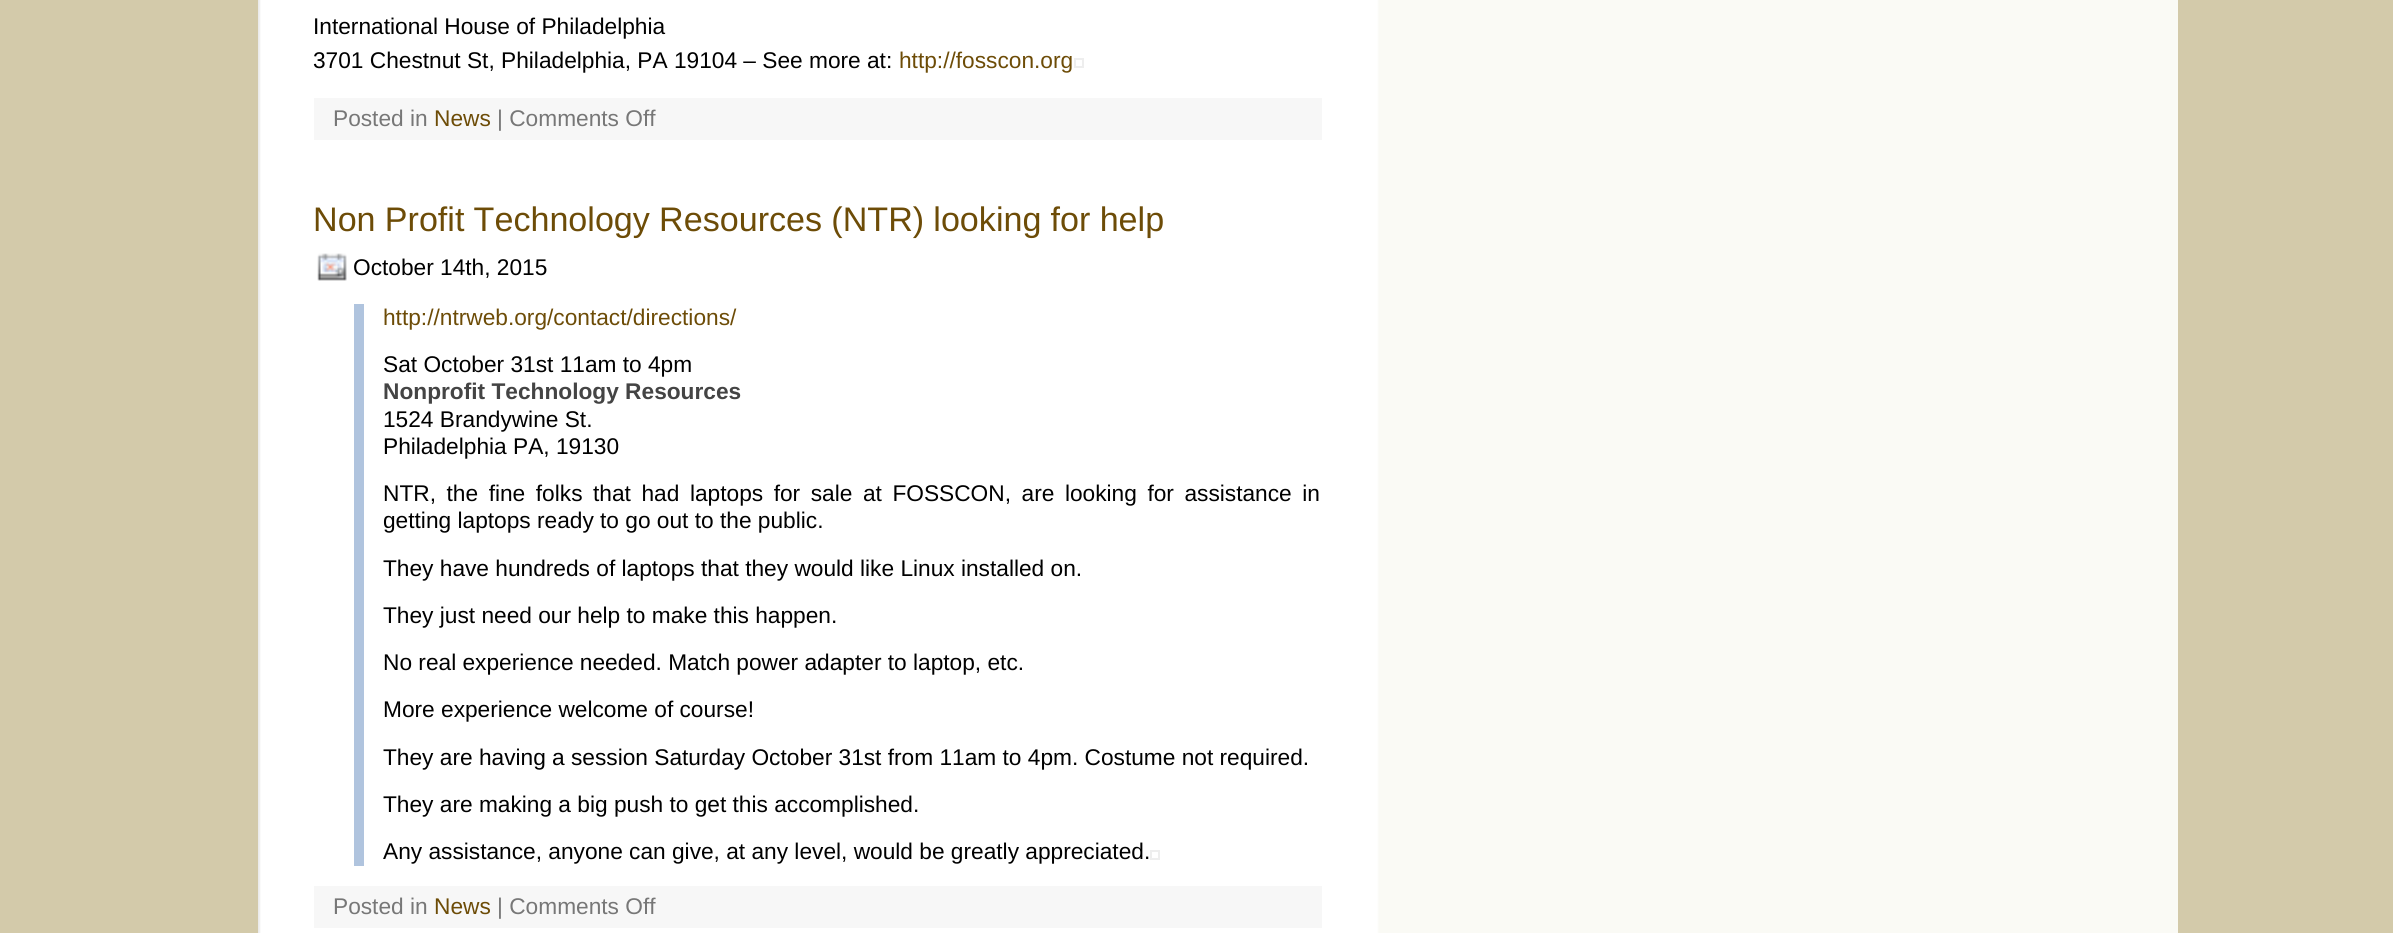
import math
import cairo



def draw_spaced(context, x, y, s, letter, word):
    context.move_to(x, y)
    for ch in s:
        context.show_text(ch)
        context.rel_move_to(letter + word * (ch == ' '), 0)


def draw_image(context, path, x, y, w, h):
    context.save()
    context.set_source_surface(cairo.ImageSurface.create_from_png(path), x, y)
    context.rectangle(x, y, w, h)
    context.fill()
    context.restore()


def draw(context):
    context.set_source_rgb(211 / 255, 202 / 255, 170 / 255)
    context.paint()
    draw_image(context, "images/1.png", 258, 0, 1920, 933)
    context.rectangle(1075, 59, 8, 8)
    context.set_source_rgb(238 / 255, 238 / 255, 238 / 255)
    context.stroke()
    context.set_source_rgb(247 / 255, 247 / 255, 247 / 255)
    context.rectangle(314, 98, 1008, 42)
    context.fill()
    draw_image(context, "images/2.png", 317, 253, 30, 28)
    context.set_source_rgb(176 / 255, 196 / 255, 222 / 255)
    context.rectangle(354, 304, 10, 562)
    context.fill()
    context.rectangle(1151, 851, 8, 8)
    context.set_source_rgb(238 / 255, 238 / 255, 238 / 255)
    context.stroke()
    context.set_source_rgb(247 / 255, 247 / 255, 247 / 255)
    context.rectangle(314, 886, 1008, 42)
    context.fill()
    context.select_font_face("Liberation Sans")
    context.set_font_size(22.7)
    context.set_source_rgb(0, 0, 0)
    context.move_to(313, 34)
    context.show_text("International House of Philadelphia")
    context.move_to(313, 68)
    context.show_text("3701 Chestnut St, Philadelphia, PA 19104 – See more at:")
    context.set_source_rgb(109 / 255, 76 / 255, 7 / 255)
    context.move_to(899, 68)
    context.show_text("http://fosscon.org")
    context.set_source_rgb(119 / 255, 119 / 255, 119 / 255)
    context.move_to(333, 126)
    context.show_text("Posted in")
    context.set_source_rgb(109 / 255, 76 / 255, 7 / 255)
    context.move_to(434, 126)
    context.show_text("News")
    context.set_source_rgb(119 / 255, 119 / 255, 119 / 255)
    context.move_to(497, 126)
    context.show_text("| Comments Off")
    context.set_font_size(34.1)
    context.set_source_rgb(109 / 255, 76 / 255, 7 / 255)
    draw_spaced(context, 313, 231, "Non Profit Technology Resources (NTR) looking for help", 0, -0.25)
    context.set_font_size(22.7)
    context.set_source_rgb(0, 0, 0)
    context.move_to(353, 275)
    context.show_text("October 14th, 2015")
    context.set_source_rgb(109 / 255, 76 / 255, 7 / 255)
    context.move_to(383, 325)
    context.show_text("http://ntrweb.org/contact/directions/")
    context.set_source_rgb(0, 0, 0)
    context.move_to(383, 372)
    context.show_text("Sat October 31st 11am to 4pm")
    context.select_font_face("Liberation Sans", cairo.FontSlant.NORMAL, cairo.FontWeight.BOLD)
    context.set_source_rgb(68 / 255, 68 / 255, 68 / 255)
    context.move_to(383, 399)
    context.show_text("Nonprofit Technology Resources")
    context.select_font_face("Liberation Sans")
    context.set_source_rgb(0, 0, 0)
    context.move_to(383, 427)
    context.show_text("1524 Brandywine St.")
    context.move_to(383, 454)
    context.show_text("Philadelphia PA, 19130")
    draw_spaced(context, 383, 501, "NTR, the fine folks that had laptops for sale at FOSSCON, are looking for assistance in", 0, 4.25)
    context.move_to(383, 528)
    context.show_text("getting laptops ready to go out to the public.")
    context.move_to(383, 576)
    context.show_text("They have hundreds of laptops that they would like Linux installed on.")
    context.move_to(383, 623)
    context.show_text("They just need our help to make this happen.")
    context.move_to(383, 670)
    context.show_text("No real experience needed. Match power adapter to laptop, etc.")
    context.move_to(383, 717)
    context.show_text("More experience welcome of course!")
    context.move_to(383, 765)
    context.show_text("They are having a session Saturday October 31st from 11am to 4pm. Costume not required.")
    context.move_to(383, 812)
    context.show_text("They are making a big push to get this accomplished.")
    context.move_to(383, 859)
    context.show_text("Any assistance, anyone can give, at any level, would be greatly appreciated.")
    context.set_source_rgb(119 / 255, 119 / 255, 119 / 255)
    context.move_to(333, 914)
    context.show_text("Posted in")
    context.set_source_rgb(109 / 255, 76 / 255, 7 / 255)
    context.move_to(434, 914)
    context.show_text("News")
    context.set_source_rgb(119 / 255, 119 / 255, 119 / 255)
    context.move_to(497, 914)
    context.show_text("| Comments Off")


surface = cairo.ImageSurface(cairo.Format.RGB24, 2393, 933)
context = cairo.Context(surface)
options = cairo.FontOptions()
options.set_hint_metrics(cairo.HintMetrics.OFF)
options.set_hint_style(cairo.HintStyle.NONE)
context.set_font_options(options)
context.set_miter_limit(4)
draw(context)
surface.write_to_png("out.png")
